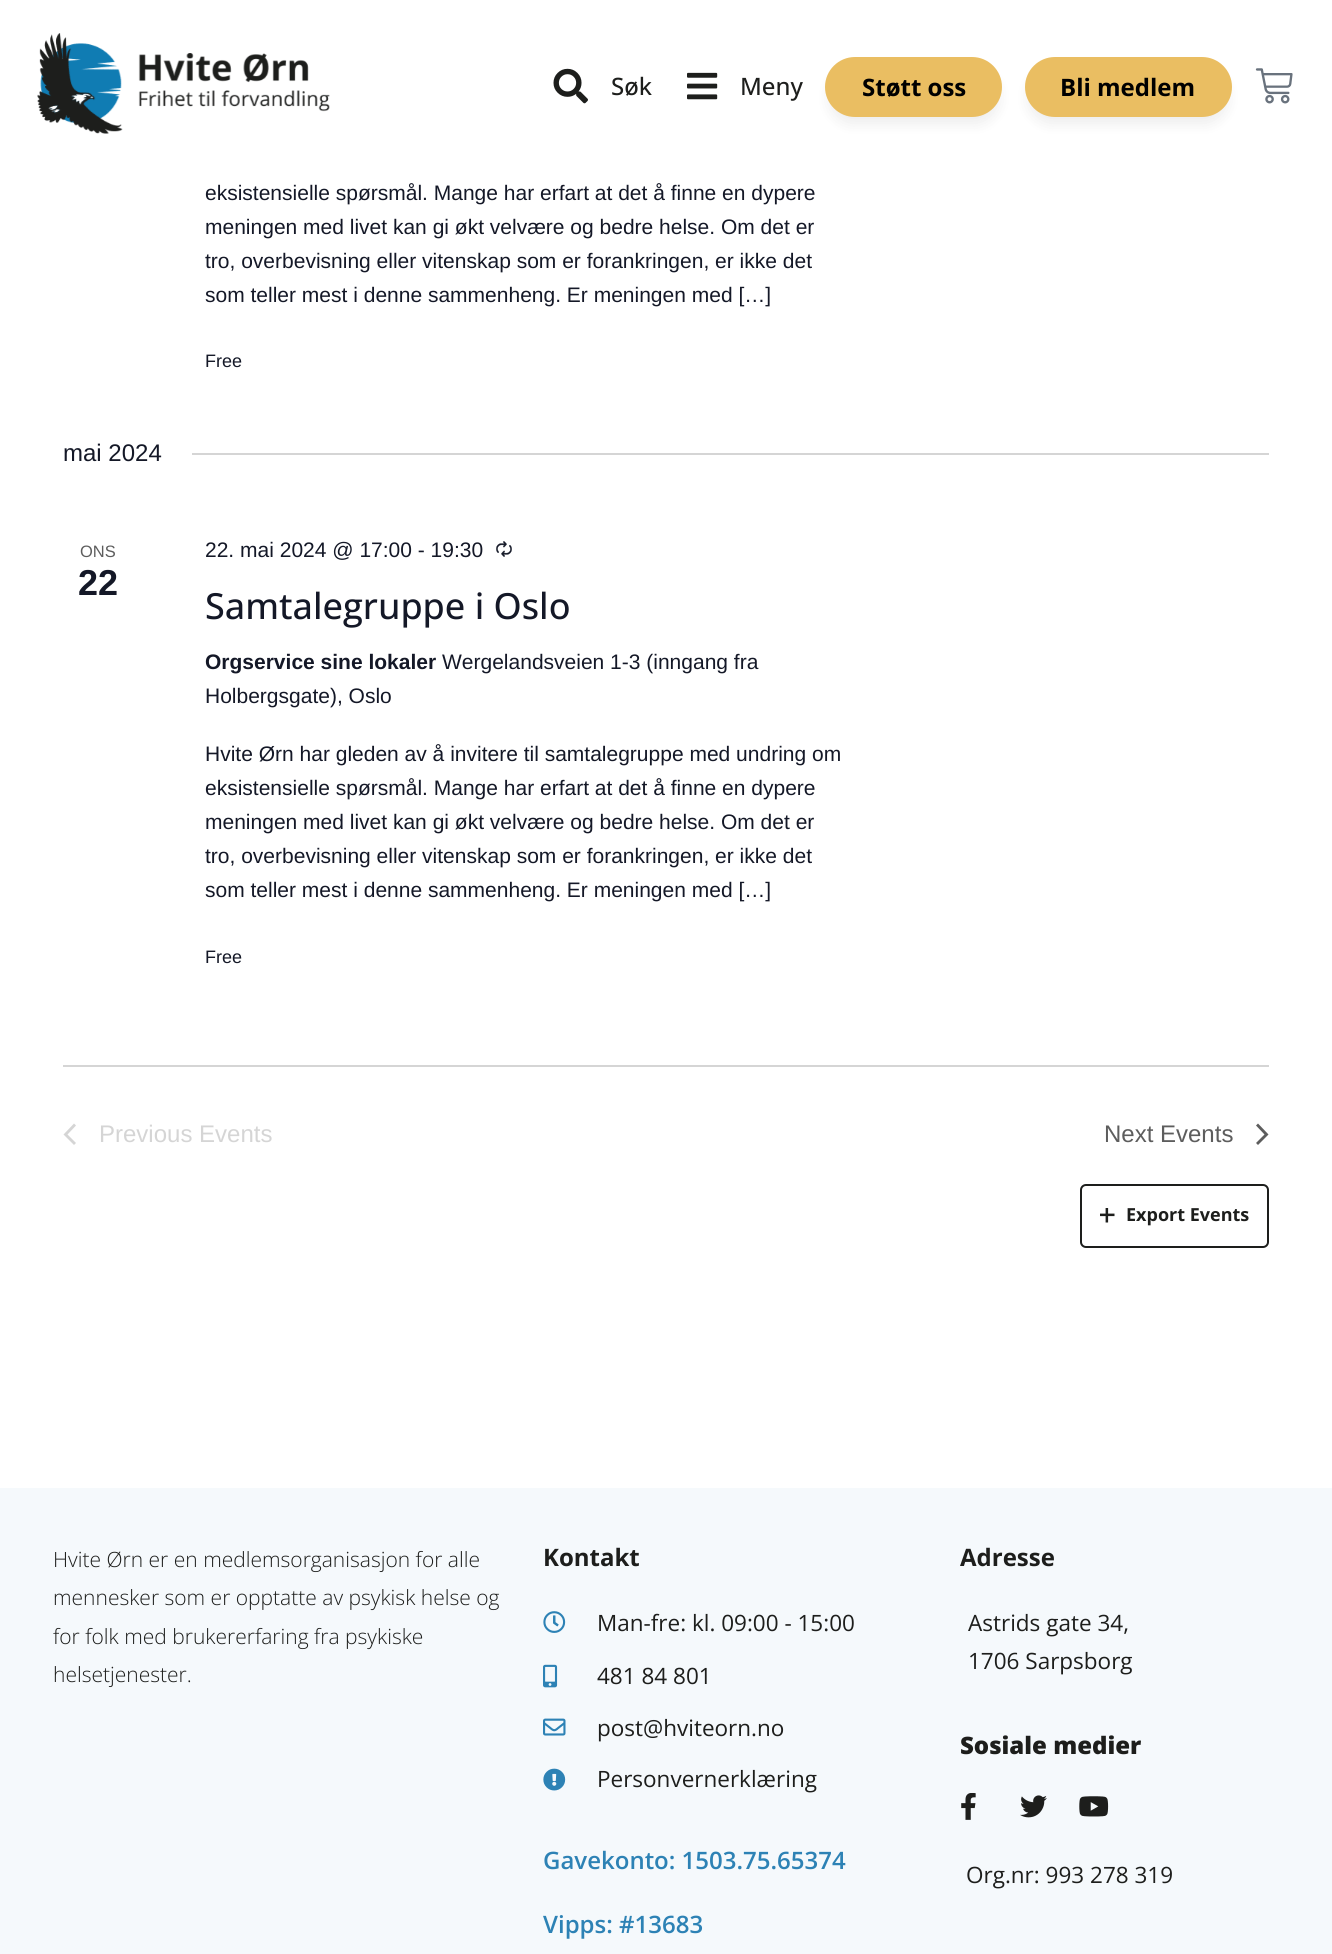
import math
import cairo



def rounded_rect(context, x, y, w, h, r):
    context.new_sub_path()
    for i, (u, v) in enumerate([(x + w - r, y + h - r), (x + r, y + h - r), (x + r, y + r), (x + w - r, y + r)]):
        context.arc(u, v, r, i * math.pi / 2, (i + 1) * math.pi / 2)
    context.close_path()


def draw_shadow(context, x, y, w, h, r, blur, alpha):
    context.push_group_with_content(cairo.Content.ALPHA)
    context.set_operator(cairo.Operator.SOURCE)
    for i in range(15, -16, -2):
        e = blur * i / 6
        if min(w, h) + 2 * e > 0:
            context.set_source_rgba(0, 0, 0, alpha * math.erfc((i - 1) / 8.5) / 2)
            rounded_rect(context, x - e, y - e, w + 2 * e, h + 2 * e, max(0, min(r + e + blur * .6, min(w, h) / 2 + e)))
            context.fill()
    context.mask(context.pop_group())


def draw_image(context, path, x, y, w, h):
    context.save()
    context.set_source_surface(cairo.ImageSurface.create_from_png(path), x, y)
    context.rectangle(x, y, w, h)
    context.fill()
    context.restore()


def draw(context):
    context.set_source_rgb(1, 1, 1)
    context.paint()
    draw_image(context, "images/1.png", 37, 33, 293, 101)
    draw_image(context, "images/2.png", 553, 68, 35, 36)
    draw_image(context, "images/3.png", 687, 72, 31, 28)
    context.set_source_rgb(0, 0, 0)
    draw_shadow(context, 830, 72, 168, 51, 25.5, 7.5, 0.08)
    context.set_source_rgb(234 / 255, 190 / 255, 98 / 255)
    rounded_rect(context, 825, 57, 177, 60, 30)
    context.fill()
    context.set_source_rgb(0, 0, 0)
    draw_shadow(context, 1029, 72, 198, 51, 25.5, 7.5, 0.08)
    context.set_source_rgb(234 / 255, 190 / 255, 98 / 255)
    rounded_rect(context, 1025, 57, 207, 60, 30)
    context.fill()
    draw_image(context, "images/4.png", 1255, 68, 38, 36)
    context.set_source_rgb(213 / 255, 213 / 255, 213 / 255)
    context.rectangle(192, 453, 1077, 2)
    context.fill()
    draw_image(context, "images/5.png", 496, 541, 16, 16)
    context.rectangle(63, 1065, 1206, 2)
    context.fill()
    context.new_path()
    context.move_to(76, 1143)
    context.line_to(74, 1145)
    context.line_to(63.5, 1134.5)
    context.line_to(74, 1123.5)
    context.line_to(76, 1125.5)
    context.line_to(67.5, 1134.5)
    context.close_path()
    context.fill()
    context.set_source_rgb(93 / 255, 93 / 255, 93 / 255)
    context.new_path()
    context.move_to(1256, 1125.5)
    context.line_to(1258, 1123.5)
    context.line_to(1268.5, 1134.5)
    context.line_to(1258, 1145)
    context.line_to(1256, 1143)
    context.line_to(1264.5, 1134.5)
    context.close_path()
    context.fill()
    rounded_rect(context, 1081, 1185, 187, 62, 5)
    context.set_source_rgb(29 / 255, 30 / 255, 28 / 255)
    context.stroke()
    draw_image(context, "images/6.png", 1100, 1208, 15, 15)
    context.set_source_rgb(245 / 255, 249 / 255, 252 / 255)
    context.rectangle(0, 1488, 1332, 466)
    context.fill()
    draw_image(context, "images/7.png", 543, 1611, 23, 22)
    draw_image(context, "images/8.png", 543, 1664, 15, 24)
    draw_image(context, "images/9.png", 543, 1718, 23, 18)
    draw_image(context, "images/10.png", 543, 1768, 23, 23)
    draw_image(context, "images/11.png", 961, 1793, 15, 27)
    draw_image(context, "images/12.png", 1020, 1795, 27, 23)
    draw_image(context, "images/13.png", 1079, 1796, 30, 21)
    context.select_font_face("Open Sans Medium")
    context.set_font_size(24)
    context.set_source_rgb(29 / 255, 30 / 255, 28 / 255)
    context.move_to(611, 95)
    context.show_text("Søk")
    context.move_to(740, 95)
    context.show_text("Meny")
    context.select_font_face("Open Sans", cairo.FontSlant.NORMAL, cairo.FontWeight.BOLD)
    context.set_source_rgb(0, 0, 0)
    context.move_to(862, 96)
    context.show_text("Støtt oss")
    context.move_to(1060, 96)
    context.show_text("Bli medlem")
    context.select_font_face("Liberation Sans")
    context.set_font_size(21)
    context.set_source_rgb(20 / 255, 24 / 255, 39 / 255)
    context.move_to(205, 200)
    context.show_text("eksistensielle spørsmål. Mange har erfart at det å finne en dypere")
    context.move_to(205, 234)
    context.show_text("meningen med livet kan gi økt velvære og bedre helse. Om det er")
    context.move_to(205, 268)
    context.show_text("tro, overbevisning eller vitenskap som er forankringen, er ikke det")
    context.move_to(205, 302)
    context.show_text("som teller mest i denne sammenheng. Er meningen med […]")
    context.set_font_size(18)
    context.move_to(205, 367)
    context.show_text("Free")
    context.set_font_size(24)
    context.move_to(63, 461)
    context.show_text("mai 2024")
    context.set_font_size(16.5)
    context.set_source_rgb(93 / 255, 93 / 255, 93 / 255)
    context.move_to(80, 557)
    context.show_text("ONS")
    context.select_font_face("Liberation Sans", cairo.FontSlant.NORMAL, cairo.FontWeight.BOLD)
    context.set_font_size(36)
    context.set_source_rgb(20 / 255, 24 / 255, 39 / 255)
    context.move_to(78, 595)
    context.show_text("22")
    context.select_font_face("Liberation Sans")
    context.set_font_size(21)
    context.move_to(205, 557)
    context.show_text("22. mai 2024 @ 17:00 - 19:30")
    context.select_font_face("Open Sans Medium")
    context.set_font_size(36)
    context.move_to(205, 619)
    context.show_text("Samtalegruppe i Oslo")
    context.select_font_face("Liberation Sans", cairo.FontSlant.NORMAL, cairo.FontWeight.BOLD)
    context.set_font_size(21)
    context.move_to(205, 669)
    context.show_text("Orgservice sine lokaler")
    context.select_font_face("Liberation Sans")
    context.move_to(442, 669)
    context.show_text("Wergelandsveien 1-3 (inngang fra")
    context.move_to(205, 703)
    context.show_text("Holbergsgate), Oslo")
    context.move_to(205, 761)
    context.show_text("Hvite Ørn har gleden av å invitere til samtalegruppe med undring om")
    context.move_to(205, 795)
    context.show_text("eksistensielle spørsmål. Mange har erfart at det å finne en dypere")
    context.move_to(205, 829)
    context.show_text("meningen med livet kan gi økt velvære og bedre helse. Om det er")
    context.move_to(205, 863)
    context.show_text("tro, overbevisning eller vitenskap som er forankringen, er ikke det")
    context.move_to(205, 897)
    context.show_text("som teller mest i denne sammenheng. Er meningen med […]")
    context.set_font_size(18)
    context.move_to(205, 963)
    context.show_text("Free")
    context.set_font_size(24)
    context.set_source_rgb(213 / 255, 213 / 255, 213 / 255)
    context.move_to(99, 1142)
    context.show_text("Previous Events")
    context.set_source_rgb(93 / 255, 93 / 255, 93 / 255)
    context.move_to(1104, 1142)
    context.show_text("Next Events")
    context.select_font_face("Open Sans", cairo.FontSlant.NORMAL, cairo.FontWeight.BOLD)
    context.set_font_size(18)
    context.set_source_rgb(29 / 255, 30 / 255, 28 / 255)
    context.move_to(1126, 1221)
    context.show_text("Export Events")
    context.select_font_face("Open Sans Light")
    context.set_font_size(21)
    context.move_to(53, 1567)
    context.show_text("Hvite Ørn er en medlemsorganisasjon for alle")
    context.move_to(53, 1605)
    context.show_text("mennesker som er opptatte av psykisk helse og")
    context.move_to(53, 1644)
    context.show_text("for folk med brukererfaring fra psykiske")
    context.move_to(53, 1682)
    context.show_text("helsetjenester.")
    context.select_font_face("Open Sans", cairo.FontSlant.NORMAL, cairo.FontWeight.BOLD)
    context.set_font_size(24)
    context.move_to(543, 1566)
    context.show_text("Kontakt")
    context.select_font_face("Open Sans")
    context.set_font_size(22.5)
    context.move_to(597, 1631)
    context.show_text("Man-fre: kl. 09:00 - 15:00")
    context.move_to(597, 1684)
    context.show_text("481 84 801")
    context.move_to(597, 1736)
    context.show_text("post@hviteorn.no")
    context.move_to(597, 1787)
    context.show_text("Personvernerklæring")
    context.select_font_face("Open Sans SemiBold")
    context.set_font_size(24)
    context.set_source_rgb(45 / 255, 130 / 255, 181 / 255)
    context.move_to(543, 1869)
    context.show_text("Gavekonto: 1503.75.65374")
    context.move_to(543, 1933)
    context.show_text("Vipps: #13683")
    context.select_font_face("Open Sans", cairo.FontSlant.NORMAL, cairo.FontWeight.BOLD)
    context.set_source_rgb(29 / 255, 30 / 255, 28 / 255)
    context.move_to(960, 1566)
    context.show_text("Adresse")
    context.select_font_face("Open Sans")
    context.set_font_size(22.5)
    context.move_to(968, 1631)
    context.show_text("Astrids gate 34,")
    context.move_to(968, 1669)
    context.show_text("1706 Sarpsborg")
    context.select_font_face("Open Sans ExtraBold")
    context.set_font_size(24)
    context.move_to(960, 1754)
    context.show_text("Sosiale medier")
    context.select_font_face("Open Sans")
    context.set_font_size(22.5)
    context.move_to(966, 1883)
    context.show_text("Org.nr: 993 278 319")


surface = cairo.ImageSurface(cairo.Format.RGB24, 1332, 1954)
context = cairo.Context(surface)
options = cairo.FontOptions()
options.set_hint_metrics(cairo.HintMetrics.OFF)
options.set_hint_style(cairo.HintStyle.NONE)
context.set_font_options(options)
context.set_miter_limit(4)
draw(context)
surface.write_to_png("out.png")
